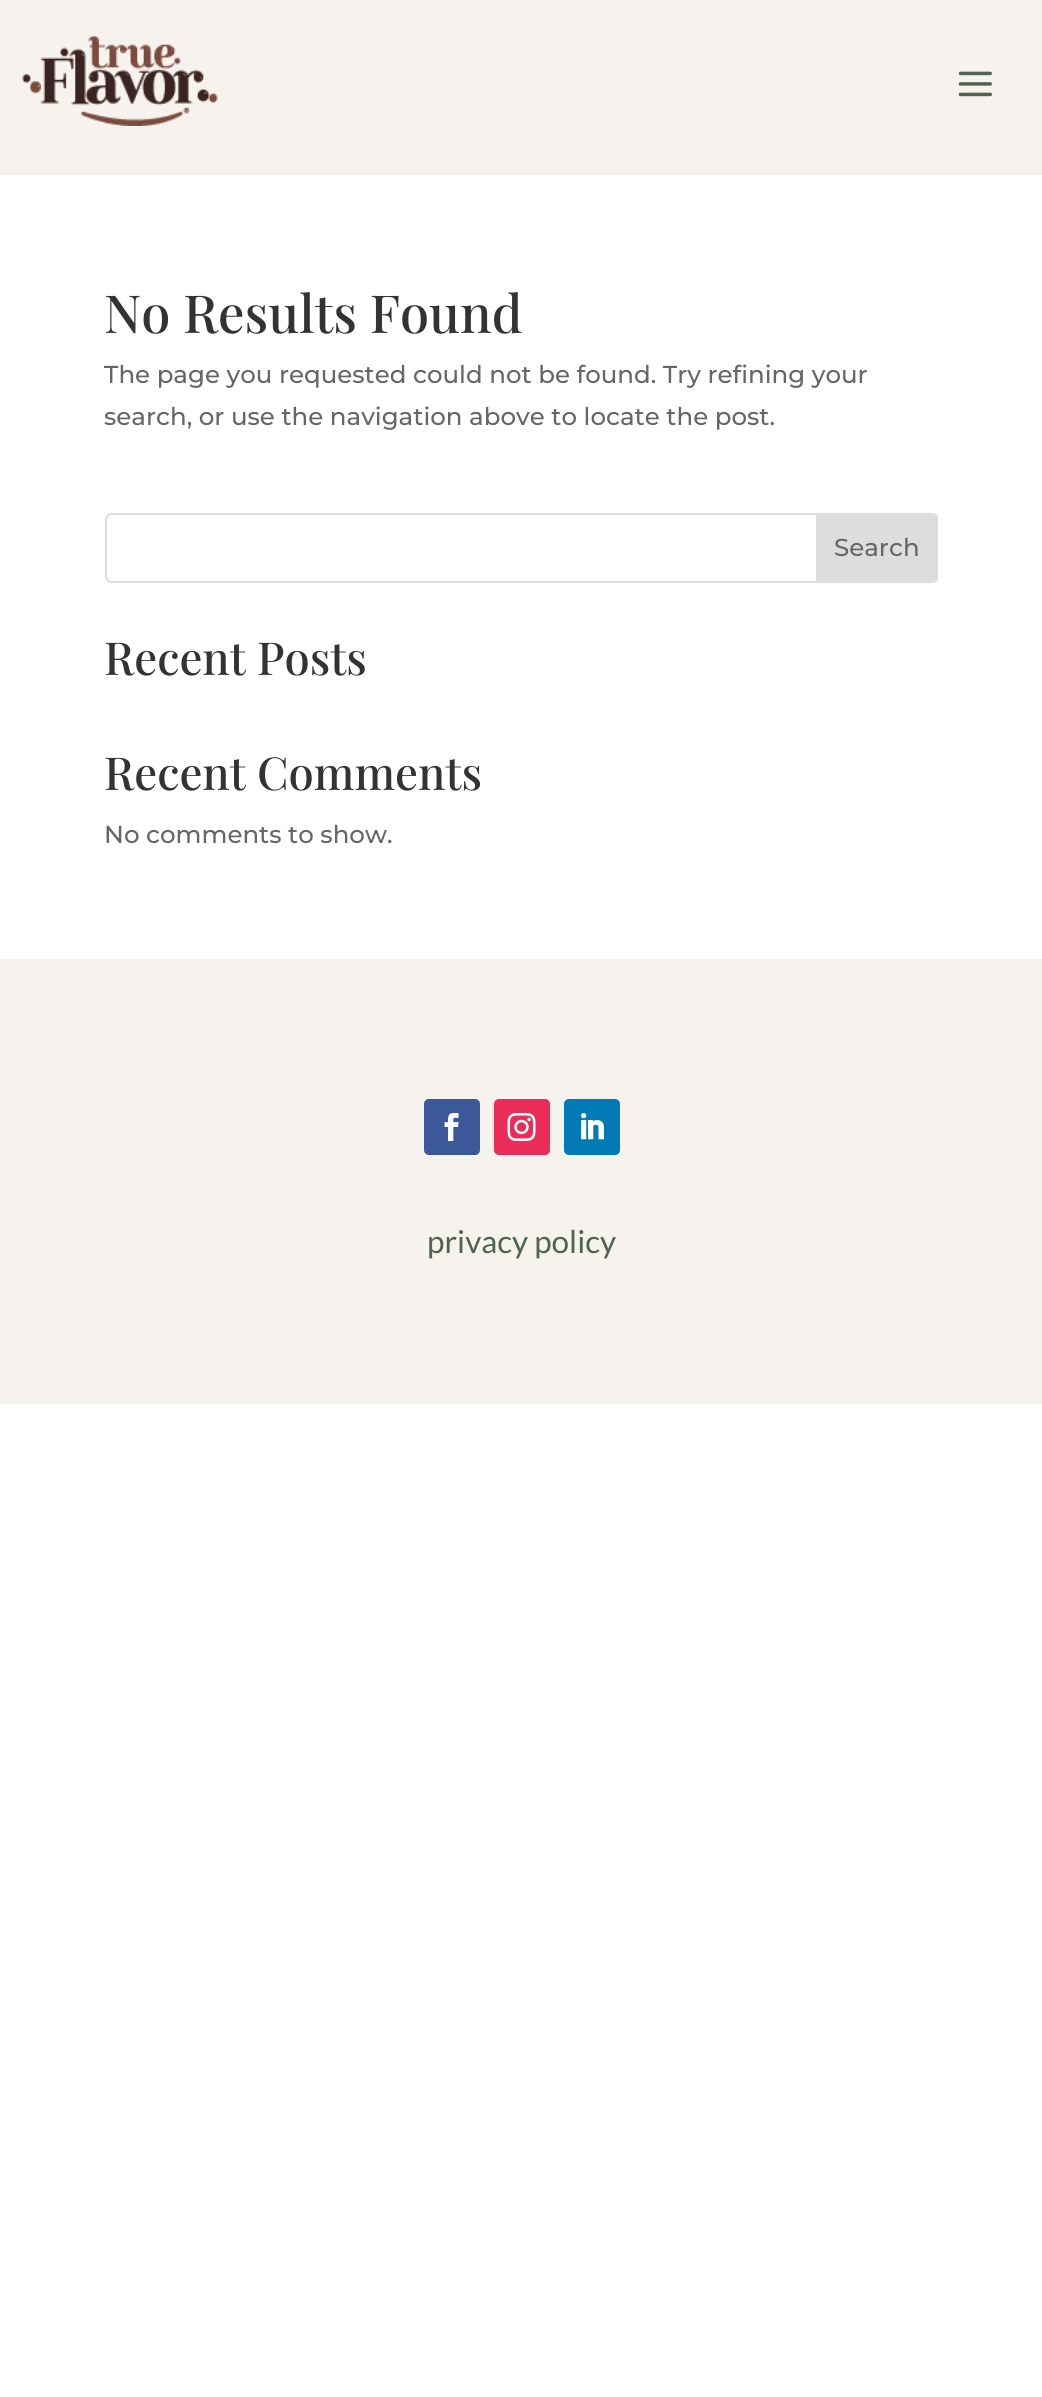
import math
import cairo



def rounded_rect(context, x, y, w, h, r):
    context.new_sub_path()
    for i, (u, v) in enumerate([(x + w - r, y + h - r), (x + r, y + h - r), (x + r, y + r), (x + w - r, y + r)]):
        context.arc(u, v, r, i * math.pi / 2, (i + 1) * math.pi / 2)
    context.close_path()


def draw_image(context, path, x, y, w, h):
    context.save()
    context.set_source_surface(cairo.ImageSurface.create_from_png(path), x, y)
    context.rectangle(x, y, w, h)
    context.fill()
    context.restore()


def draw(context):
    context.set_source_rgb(1, 1, 1)
    context.paint()
    context.set_source_rgb(246 / 255, 243 / 255, 239 / 255)
    context.rectangle(0, 0, 1042, 175)
    context.fill()
    draw_image(context, "images/1.png", 22, 36, 196, 90)
    draw_image(context, "images/2.png", 958, 71, 34, 26)
    rounded_rect(context, 106, 514, 831, 68, 6)
    context.set_source_rgb(221 / 255, 221 / 255, 221 / 255)
    context.stroke()
    context.new_path()
    context.move_to(817, 514)
    context.line_to(933, 514)
    context.curve_to(935, 514, 937, 516, 937, 518)
    context.line_to(937, 578)
    context.curve_to(937, 580, 935, 582, 933, 582)
    context.line_to(817, 582)
    context.close_path()
    context.fill_preserve()
    context.stroke()
    context.set_source_rgb(246 / 255, 243 / 255, 239 / 255)
    context.rectangle(0, 959, 1042, 445)
    context.fill()
    context.set_source_rgb(59 / 255, 89 / 255, 152 / 255)
    rounded_rect(context, 424, 1099, 56, 56, 5)
    context.fill()
    draw_image(context, "images/3.png", 444, 1113, 15, 28)
    context.set_source_rgb(234 / 255, 44 / 255, 89 / 255)
    rounded_rect(context, 494, 1099, 56, 56, 5)
    context.fill()
    draw_image(context, "images/4.png", 507, 1113, 29, 28)
    context.set_source_rgb(0, 123 / 255, 182 / 255)
    rounded_rect(context, 564, 1099, 56, 56, 5)
    context.fill()
    draw_image(context, "images/5.png", 581, 1113, 23, 27)
    context.select_font_face("Playfair Display Medium")
    context.set_font_size(52.5)
    context.set_source_rgb(51 / 255, 51 / 255, 51 / 255)
    context.move_to(104, 333)
    context.show_text("No Results Found")
    context.select_font_face("Montserrat Thin")
    context.set_font_size(24.5)
    context.set_source_rgb(102 / 255, 102 / 255, 102 / 255)
    context.move_to(104, 383)
    context.show_text("The page you requested could not be found. Try refining your")
    context.move_to(104, 425)
    context.show_text("search, or use the navigation above to locate the post.")
    context.move_to(834, 556)
    context.show_text("Search")
    context.select_font_face("Playfair Display Medium")
    context.set_font_size(45.5)
    context.set_source_rgb(51 / 255, 51 / 255, 51 / 255)
    context.move_to(104, 675)
    context.show_text("Recent Posts")
    context.move_to(104, 790)
    context.show_text("Recent Comments")
    context.select_font_face("Montserrat Thin")
    context.set_font_size(24.5)
    context.set_source_rgb(102 / 255, 102 / 255, 102 / 255)
    context.move_to(104, 843)
    context.show_text("No comments to show.")
    context.select_font_face("Lato")
    context.set_font_size(31.5)
    context.set_source_rgb(79 / 255, 100 / 255, 80 / 255)
    context.move_to(427, 1253)
    context.show_text("privacy policy")


surface = cairo.ImageSurface(cairo.Format.RGB24, 1042, 2397)
context = cairo.Context(surface)
options = cairo.FontOptions()
options.set_hint_metrics(cairo.HintMetrics.OFF)
options.set_hint_style(cairo.HintStyle.NONE)
context.set_font_options(options)
context.set_miter_limit(4)
draw(context)
surface.write_to_png("out.png")
